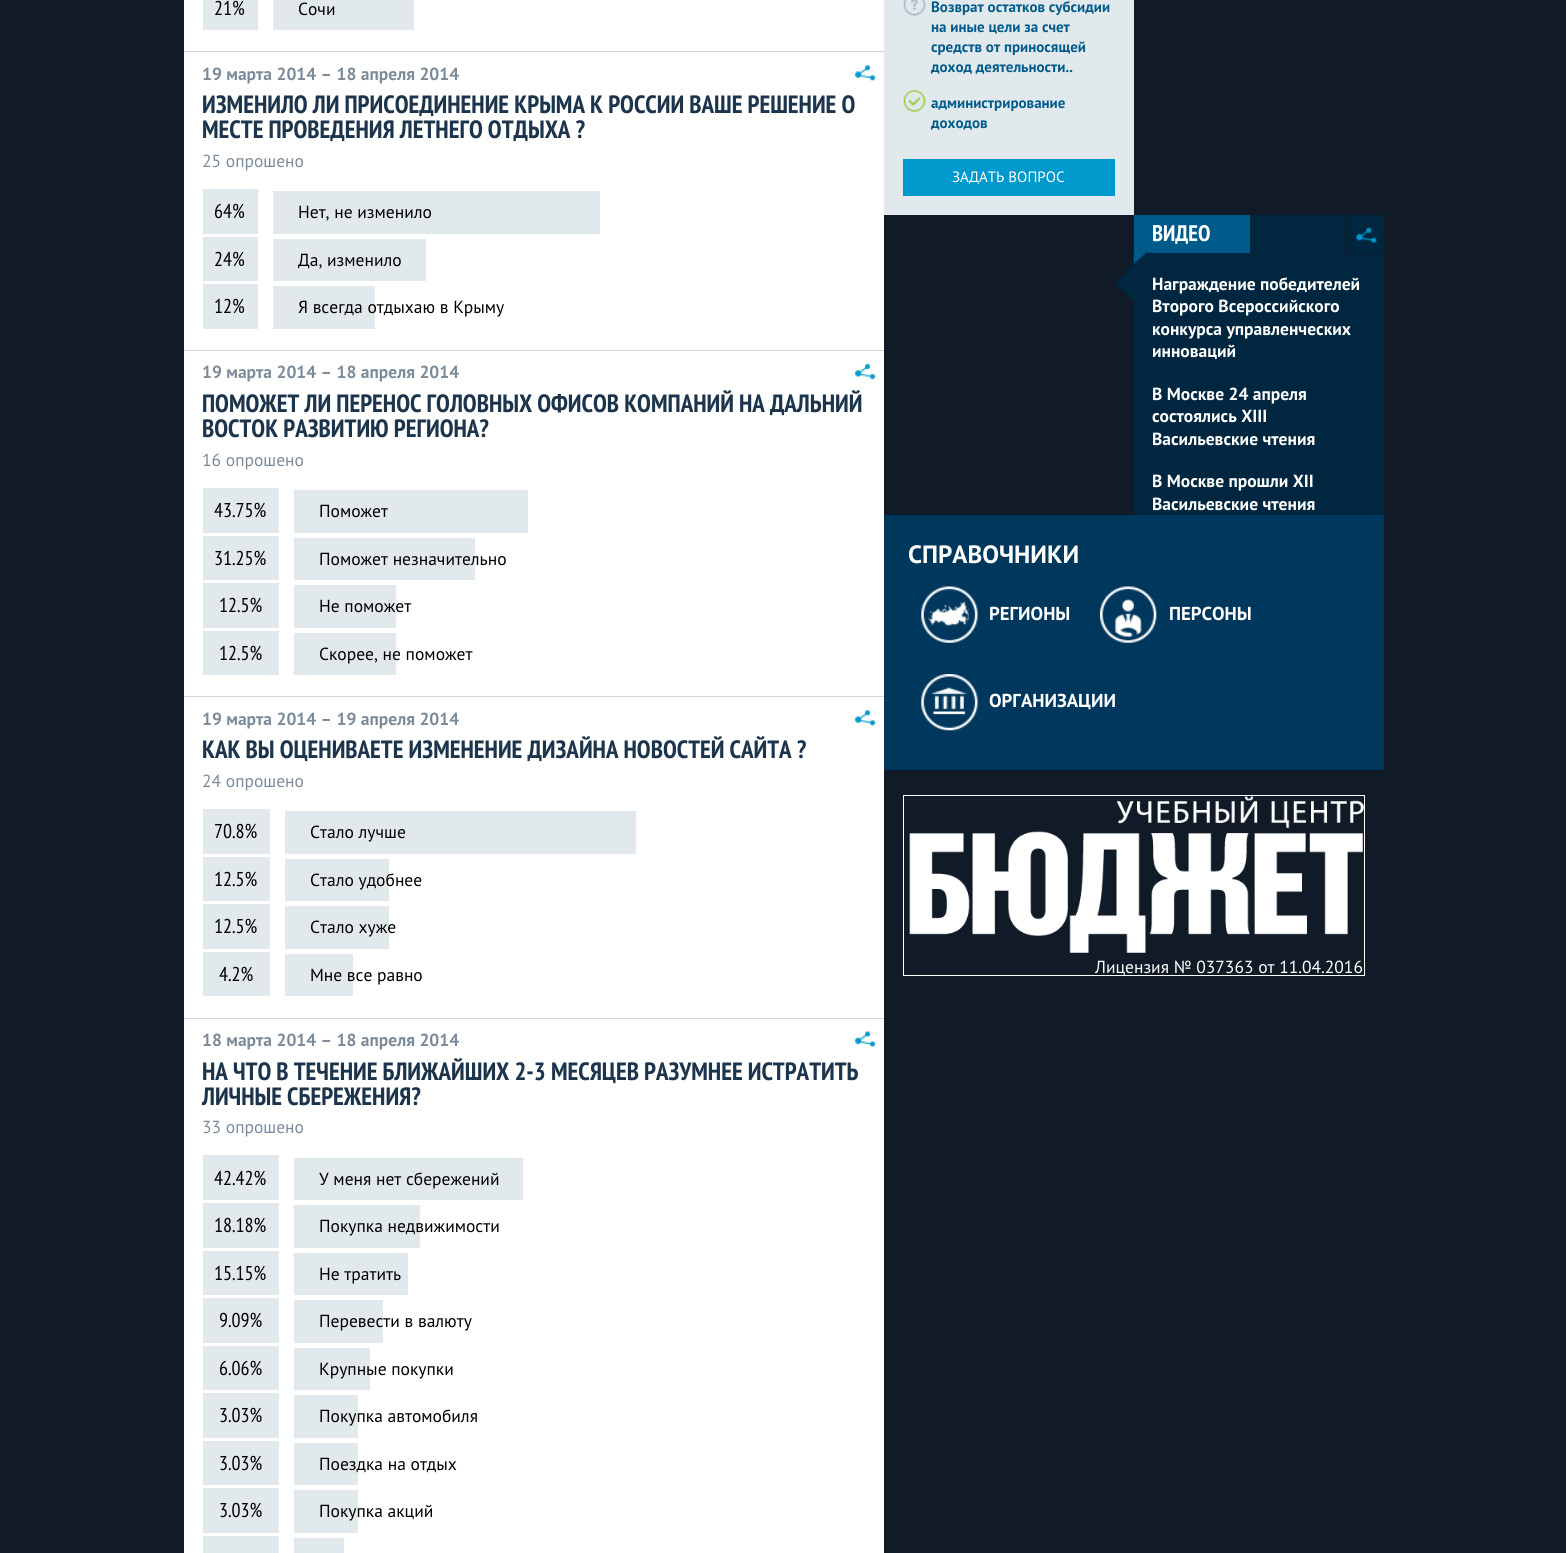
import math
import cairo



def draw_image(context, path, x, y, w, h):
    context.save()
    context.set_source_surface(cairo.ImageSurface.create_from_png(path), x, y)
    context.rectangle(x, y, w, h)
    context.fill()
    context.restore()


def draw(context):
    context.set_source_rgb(17 / 255, 27 / 255, 39 / 255)
    context.paint()
    context.set_source_rgb(1, 1, 1)
    context.rectangle(184, 0, 700, 1553)
    context.fill()
    context.set_source_rgb(215 / 255, 215 / 255, 215 / 255)
    context.rectangle(184, 51, 700, 1)
    context.fill()
    context.set_source_rgb(226 / 255, 233 / 255, 236 / 255)
    context.rectangle(203, 0, 55, 30)
    context.fill()
    context.rectangle(273, 0, 141, 30)
    context.fill()
    context.set_source_rgb(215 / 255, 215 / 255, 215 / 255)
    context.rectangle(184, 350, 700, 1)
    context.fill()
    draw_image(context, "images/1.png", 854, 65, 22, 16)
    context.set_source_rgb(226 / 255, 233 / 255, 236 / 255)
    context.rectangle(203, 189, 55, 45)
    context.fill()
    context.rectangle(273, 191, 327, 43)
    context.fill()
    context.rectangle(203, 237, 55, 44)
    context.fill()
    context.rectangle(273, 239, 153, 42)
    context.fill()
    context.rectangle(203, 284, 55, 45)
    context.fill()
    context.rectangle(273, 286, 102, 43)
    context.fill()
    context.set_source_rgb(215 / 255, 215 / 255, 215 / 255)
    context.rectangle(184, 696, 700, 1)
    context.fill()
    draw_image(context, "images/2.png", 854, 363, 22, 17)
    context.set_source_rgb(226 / 255, 233 / 255, 236 / 255)
    context.rectangle(203, 488, 76, 45)
    context.fill()
    context.rectangle(294, 490, 234, 43)
    context.fill()
    context.rectangle(203, 536, 76, 44)
    context.fill()
    context.rectangle(294, 538, 181, 42)
    context.fill()
    context.rectangle(203, 583, 76, 45)
    context.fill()
    context.rectangle(294, 585, 102, 43)
    context.fill()
    context.rectangle(203, 631, 76, 44)
    context.fill()
    context.rectangle(294, 633, 102, 42)
    context.fill()
    context.set_source_rgb(215 / 255, 215 / 255, 215 / 255)
    context.rectangle(184, 1018, 700, 1)
    context.fill()
    draw_image(context, "images/1.png", 854, 710, 22, 16)
    context.set_source_rgb(226 / 255, 233 / 255, 236 / 255)
    context.rectangle(203, 809, 67, 45)
    context.fill()
    context.rectangle(285, 811, 351, 43)
    context.fill()
    context.rectangle(203, 857, 67, 44)
    context.fill()
    context.rectangle(285, 859, 104, 42)
    context.fill()
    context.rectangle(203, 904, 67, 45)
    context.fill()
    context.rectangle(285, 906, 104, 43)
    context.fill()
    context.rectangle(203, 952, 67, 44)
    context.fill()
    context.rectangle(285, 954, 68, 42)
    context.fill()
    draw_image(context, "images/3.png", 854, 1031, 22, 16)
    context.rectangle(203, 1155, 76, 45)
    context.fill()
    context.rectangle(294, 1158, 229, 42)
    context.fill()
    context.rectangle(203, 1203, 76, 45)
    context.fill()
    context.rectangle(294, 1205, 126, 43)
    context.fill()
    context.rectangle(203, 1251, 76, 44)
    context.fill()
    context.rectangle(294, 1253, 114, 42)
    context.fill()
    context.rectangle(203, 1298, 76, 45)
    context.fill()
    context.rectangle(294, 1300, 89, 43)
    context.fill()
    context.rectangle(203, 1346, 76, 44)
    context.fill()
    context.rectangle(294, 1348, 76, 42)
    context.fill()
    context.rectangle(203, 1393, 76, 45)
    context.fill()
    context.rectangle(294, 1395, 64, 43)
    context.fill()
    context.rectangle(203, 1441, 76, 44)
    context.fill()
    context.rectangle(294, 1443, 64, 42)
    context.fill()
    context.rectangle(203, 1488, 76, 45)
    context.fill()
    context.rectangle(294, 1490, 64, 43)
    context.fill()
    context.rectangle(203, 1536, 76, 17)
    context.fill()
    context.rectangle(294, 1538, 50, 15)
    context.fill()
    context.rectangle(884, 0, 250, 215)
    context.fill()
    draw_image(context, "images/4.png", 903, 0, 23, 16)
    draw_image(context, "images/5.png", 903, 90, 23, 22)
    context.set_source_rgb(0, 153 / 255, 204 / 255)
    context.rectangle(903, 159, 212, 37)
    context.fill()
    context.set_source_rgb(0, 38 / 255, 64 / 255)
    context.rectangle(1134, 215, 250, 300)
    context.fill()
    context.set_source_rgb(0, 91 / 255, 139 / 255)
    context.rectangle(1134, 215, 116, 38)
    context.fill()
    context.set_source_rgb(17 / 255, 27 / 255, 39 / 255)
    context.rectangle(1346, 253, 38, 1)
    context.fill()
    context.rectangle(1346, 216, 1, 38)
    context.fill()
    draw_image(context, "images/7.png", 1356, 227, 21, 16)
    context.set_source_rgb(0, 55 / 255, 92 / 255)
    context.rectangle(884, 515, 500, 255)
    context.fill()
    draw_image(context, "images/8.png", 921, 586, 57, 57)
    draw_image(context, "images/9.png", 1100, 586, 57, 57)
    draw_image(context, "images/10.png", 921, 674, 57, 57)
    context.rectangle(903.5, 795.5, 461, 180)
    context.set_source_rgb(1, 1, 1)
    context.set_line_width(1)
    context.stroke()
    draw_image(context, "images/11.png", 909, 796, 455, 157)
    context.select_font_face("PT Sans Narrow")
    context.set_font_size(20)
    context.set_source_rgb(0, 0, 0)
    context.move_to(214, 15)
    context.show_text("21%")
    context.select_font_face("PT Sans")
    context.set_font_size(17.5)
    context.move_to(298, 15)
    context.show_text("Сочи")
    context.select_font_face("PT Sans", cairo.FontSlant.NORMAL, cairo.FontWeight.BOLD)
    context.set_source_rgb(124 / 255, 139 / 255, 153 / 255)
    context.move_to(202, 80)
    context.show_text("19 марта 2014 – 18 апреля 2014")
    context.select_font_face("PT Sans Narrow", cairo.FontSlant.NORMAL, cairo.FontWeight.BOLD)
    context.set_font_size(25)
    context.set_source_rgb(28 / 255, 52 / 255, 76 / 255)
    context.move_to(202, 113)
    context.show_text("ИЗМЕНИЛО ЛИ ПРИСОЕДИНЕНИЕ КРЫМА К РОССИИ ВАШЕ РЕШЕНИЕ О")
    context.move_to(202, 138)
    context.show_text("МЕСТЕ ПРОВЕДЕНИЯ ЛЕТНЕГО ОТДЫХА ?")
    context.select_font_face("PT Sans")
    context.set_font_size(17.5)
    context.set_source_rgb(124 / 255, 139 / 255, 153 / 255)
    context.move_to(202, 167)
    context.show_text("25 опрошено")
    context.select_font_face("PT Sans Narrow")
    context.set_font_size(20)
    context.set_source_rgb(0, 0, 0)
    context.move_to(214, 218)
    context.show_text("64%")
    context.select_font_face("PT Sans")
    context.set_font_size(17.5)
    context.move_to(298, 218)
    context.show_text("Нет, не изменило")
    context.select_font_face("PT Sans Narrow")
    context.set_font_size(20)
    context.move_to(214, 266)
    context.show_text("24%")
    context.select_font_face("PT Sans")
    context.set_font_size(17.5)
    context.move_to(298, 266)
    context.show_text("Да, изменило")
    context.select_font_face("PT Sans Narrow")
    context.set_font_size(20)
    context.move_to(214, 313)
    context.show_text("12%")
    context.select_font_face("PT Sans")
    context.set_font_size(17.5)
    context.move_to(298, 313)
    context.show_text("Я всегда отдыхаю в Крыму")
    context.select_font_face("PT Sans", cairo.FontSlant.NORMAL, cairo.FontWeight.BOLD)
    context.set_source_rgb(124 / 255, 139 / 255, 153 / 255)
    context.move_to(202, 378)
    context.show_text("19 марта 2014 – 18 апреля 2014")
    context.select_font_face("PT Sans Narrow", cairo.FontSlant.NORMAL, cairo.FontWeight.BOLD)
    context.set_font_size(25)
    context.set_source_rgb(28 / 255, 52 / 255, 76 / 255)
    context.move_to(202, 412)
    context.show_text("ПОМОЖЕТ ЛИ ПЕРЕНОС ГОЛОВНЫХ ОФИСОВ КОМПАНИЙ НА ДАЛЬНИЙ")
    context.move_to(202, 437)
    context.show_text("ВОСТОК РАЗВИТИЮ РЕГИОНА?")
    context.select_font_face("PT Sans")
    context.set_font_size(17.5)
    context.set_source_rgb(124 / 255, 139 / 255, 153 / 255)
    context.move_to(202, 466)
    context.show_text("16 опрошено")
    context.select_font_face("PT Sans Narrow")
    context.set_font_size(20)
    context.set_source_rgb(0, 0, 0)
    context.move_to(214, 517)
    context.show_text("43.75%")
    context.select_font_face("PT Sans")
    context.set_font_size(17.5)
    context.move_to(319, 517)
    context.show_text("Поможет")
    context.select_font_face("PT Sans Narrow")
    context.set_font_size(20)
    context.move_to(214, 565)
    context.show_text("31.25%")
    context.select_font_face("PT Sans")
    context.set_font_size(17.5)
    context.move_to(319, 565)
    context.show_text("Поможет незначительно")
    context.select_font_face("PT Sans Narrow")
    context.set_font_size(20)
    context.move_to(219, 612)
    context.show_text("12.5%")
    context.select_font_face("PT Sans")
    context.set_font_size(17.5)
    context.move_to(319, 612)
    context.show_text("Не поможет")
    context.select_font_face("PT Sans Narrow")
    context.set_font_size(20)
    context.move_to(219, 660)
    context.show_text("12.5%")
    context.select_font_face("PT Sans")
    context.set_font_size(17.5)
    context.move_to(319, 660)
    context.show_text("Скорее, не поможет")
    context.select_font_face("PT Sans", cairo.FontSlant.NORMAL, cairo.FontWeight.BOLD)
    context.set_source_rgb(124 / 255, 139 / 255, 153 / 255)
    context.move_to(202, 725)
    context.show_text("19 марта 2014 – 19 апреля 2014")
    context.select_font_face("PT Sans Narrow", cairo.FontSlant.NORMAL, cairo.FontWeight.BOLD)
    context.set_font_size(25)
    context.set_source_rgb(28 / 255, 52 / 255, 76 / 255)
    context.move_to(202, 758)
    context.show_text("КАК ВЫ ОЦЕНИВАЕТЕ ИЗМЕНЕНИЕ ДИЗАЙНА НОВОСТЕЙ САЙТА ?")
    context.select_font_face("PT Sans")
    context.set_font_size(17.5)
    context.set_source_rgb(124 / 255, 139 / 255, 153 / 255)
    context.move_to(202, 787)
    context.show_text("24 опрошено")
    context.select_font_face("PT Sans Narrow")
    context.set_font_size(20)
    context.set_source_rgb(0, 0, 0)
    context.move_to(214, 838)
    context.show_text("70.8%")
    context.select_font_face("PT Sans")
    context.set_font_size(17.5)
    context.move_to(310, 838)
    context.show_text("Стало лучше")
    context.select_font_face("PT Sans Narrow")
    context.set_font_size(20)
    context.move_to(214, 886)
    context.show_text("12.5%")
    context.select_font_face("PT Sans")
    context.set_font_size(17.5)
    context.move_to(310, 886)
    context.show_text("Стало удобнее")
    context.select_font_face("PT Sans Narrow")
    context.set_font_size(20)
    context.move_to(214, 933)
    context.show_text("12.5%")
    context.select_font_face("PT Sans")
    context.set_font_size(17.5)
    context.move_to(310, 933)
    context.show_text("Стало хуже")
    context.select_font_face("PT Sans Narrow")
    context.set_font_size(20)
    context.move_to(219, 981)
    context.show_text("4.2%")
    context.select_font_face("PT Sans")
    context.set_font_size(17.5)
    context.move_to(310, 981)
    context.show_text("Мне все равно")
    context.select_font_face("PT Sans", cairo.FontSlant.NORMAL, cairo.FontWeight.BOLD)
    context.set_source_rgb(124 / 255, 139 / 255, 153 / 255)
    context.move_to(202, 1046)
    context.show_text("18 марта 2014 – 18 апреля 2014")
    context.select_font_face("PT Sans Narrow", cairo.FontSlant.NORMAL, cairo.FontWeight.BOLD)
    context.set_font_size(25)
    context.set_source_rgb(28 / 255, 52 / 255, 76 / 255)
    context.move_to(202, 1080)
    context.show_text("НА ЧТО В ТЕЧЕНИЕ БЛИЖАЙШИХ 2-3 МЕСЯЦЕВ РАЗУМНЕЕ ИСТРАТИТЬ")
    context.move_to(202, 1105)
    context.show_text("ЛИЧНЫЕ СБЕРЕЖЕНИЯ?")
    context.select_font_face("PT Sans")
    context.set_font_size(17.5)
    context.set_source_rgb(124 / 255, 139 / 255, 153 / 255)
    context.move_to(202, 1133)
    context.show_text("33 опрошено")
    context.select_font_face("PT Sans Narrow")
    context.set_font_size(20)
    context.set_source_rgb(0, 0, 0)
    context.move_to(214, 1185)
    context.show_text("42.42%")
    context.select_font_face("PT Sans")
    context.set_font_size(17.5)
    context.move_to(319, 1185)
    context.show_text("У меня нет сбережений")
    context.select_font_face("PT Sans Narrow")
    context.set_font_size(20)
    context.move_to(214, 1232)
    context.show_text("18.18%")
    context.select_font_face("PT Sans")
    context.set_font_size(17.5)
    context.move_to(319, 1232)
    context.show_text("Покупка недвижимости")
    context.select_font_face("PT Sans Narrow")
    context.set_font_size(20)
    context.move_to(214, 1280)
    context.show_text("15.15%")
    context.select_font_face("PT Sans")
    context.set_font_size(17.5)
    context.move_to(319, 1280)
    context.show_text("Не тратить")
    context.select_font_face("PT Sans Narrow")
    context.set_font_size(20)
    context.move_to(219, 1327)
    context.show_text("9.09%")
    context.select_font_face("PT Sans")
    context.set_font_size(17.5)
    context.move_to(319, 1327)
    context.show_text("Перевести в валюту")
    context.select_font_face("PT Sans Narrow")
    context.set_font_size(20)
    context.move_to(219, 1375)
    context.show_text("6.06%")
    context.select_font_face("PT Sans")
    context.set_font_size(17.5)
    context.move_to(319, 1375)
    context.show_text("Крупные покупки")
    context.select_font_face("PT Sans Narrow")
    context.set_font_size(20)
    context.move_to(219, 1422)
    context.show_text("3.03%")
    context.select_font_face("PT Sans")
    context.set_font_size(17.5)
    context.move_to(319, 1422)
    context.show_text("Покупка автомобиля")
    context.select_font_face("PT Sans Narrow")
    context.set_font_size(20)
    context.move_to(219, 1470)
    context.show_text("3.03%")
    context.select_font_face("PT Sans")
    context.set_font_size(17.5)
    context.move_to(319, 1470)
    context.show_text("Поездка на отдых")
    context.select_font_face("PT Sans Narrow")
    context.set_font_size(20)
    context.move_to(219, 1517)
    context.show_text("3.03%")
    context.select_font_face("PT Sans")
    context.set_font_size(17.5)
    context.move_to(319, 1517)
    context.show_text("Покупка акций")
    context.select_font_face("PT Sans", cairo.FontSlant.NORMAL, cairo.FontWeight.BOLD)
    context.set_font_size(15)
    context.set_source_rgb(0, 91 / 255, 139 / 255)
    context.move_to(931, 12)
    context.show_text("Возврат остатков субсидии")
    context.move_to(931, 32)
    context.show_text("на иные цели за счет")
    context.move_to(931, 52)
    context.show_text("средств от приносящей")
    context.move_to(931, 72)
    context.show_text("доход деятельности..")
    context.move_to(931, 108)
    context.show_text("администрирование")
    context.move_to(931, 128)
    context.show_text("доходов")
    context.select_font_face("PT Sans")
    context.set_source_rgb(1, 1, 1)
    context.move_to(952, 182)
    context.show_text("ЗАДАТЬ ВОПРОС")
    context.select_font_face("PT Sans Narrow", cairo.FontSlant.NORMAL, cairo.FontWeight.BOLD)
    context.set_font_size(22.5)
    context.move_to(1152, 241)
    context.show_text("ВИДЕО")
    context.select_font_face("PT Sans", cairo.FontSlant.NORMAL, cairo.FontWeight.BOLD)
    context.set_font_size(17.5)
    context.move_to(1152, 290)
    context.show_text("Награждение победителей")
    context.move_to(1152, 312)
    context.show_text("Второго Всероссийского")
    draw_image(context, "images/6.png", 1115, 252, 38, 50)
    context.move_to(1152, 335)
    context.show_text("конкурса управленческих")
    context.move_to(1152, 357)
    context.show_text("инноваций")
    context.move_to(1152, 400)
    context.show_text("В Москве 24 апреля")
    context.move_to(1152, 422)
    context.show_text("состоялись XIII")
    context.move_to(1152, 445)
    context.show_text("Васильевские чтения")
    context.move_to(1152, 487)
    context.show_text("В Москве прошли XII")
    context.move_to(1152, 510)
    context.show_text("Васильевские чтения")
    context.set_font_size(25)
    context.move_to(908, 563)
    context.show_text("СПРАВОЧНИКИ")
    context.set_font_size(18.75)
    context.move_to(989, 620)
    context.show_text("РЕГИОНЫ")
    context.move_to(1169, 620)
    context.show_text("ПЕРСОНЫ")
    context.move_to(989, 707)
    context.show_text("ОРГАНИЗАЦИИ")
    context.select_font_face("PT Sans")
    context.set_font_size(17.5)
    context.move_to(1095, 973)
    context.show_text("Лицензия № 037363 от 11.04.2016")


surface = cairo.ImageSurface(cairo.Format.RGB24, 1566, 1553)
context = cairo.Context(surface)
options = cairo.FontOptions()
options.set_hint_metrics(cairo.HintMetrics.OFF)
options.set_hint_style(cairo.HintStyle.NONE)
context.set_font_options(options)
context.set_miter_limit(4)
draw(context)
surface.write_to_png("out.png")
